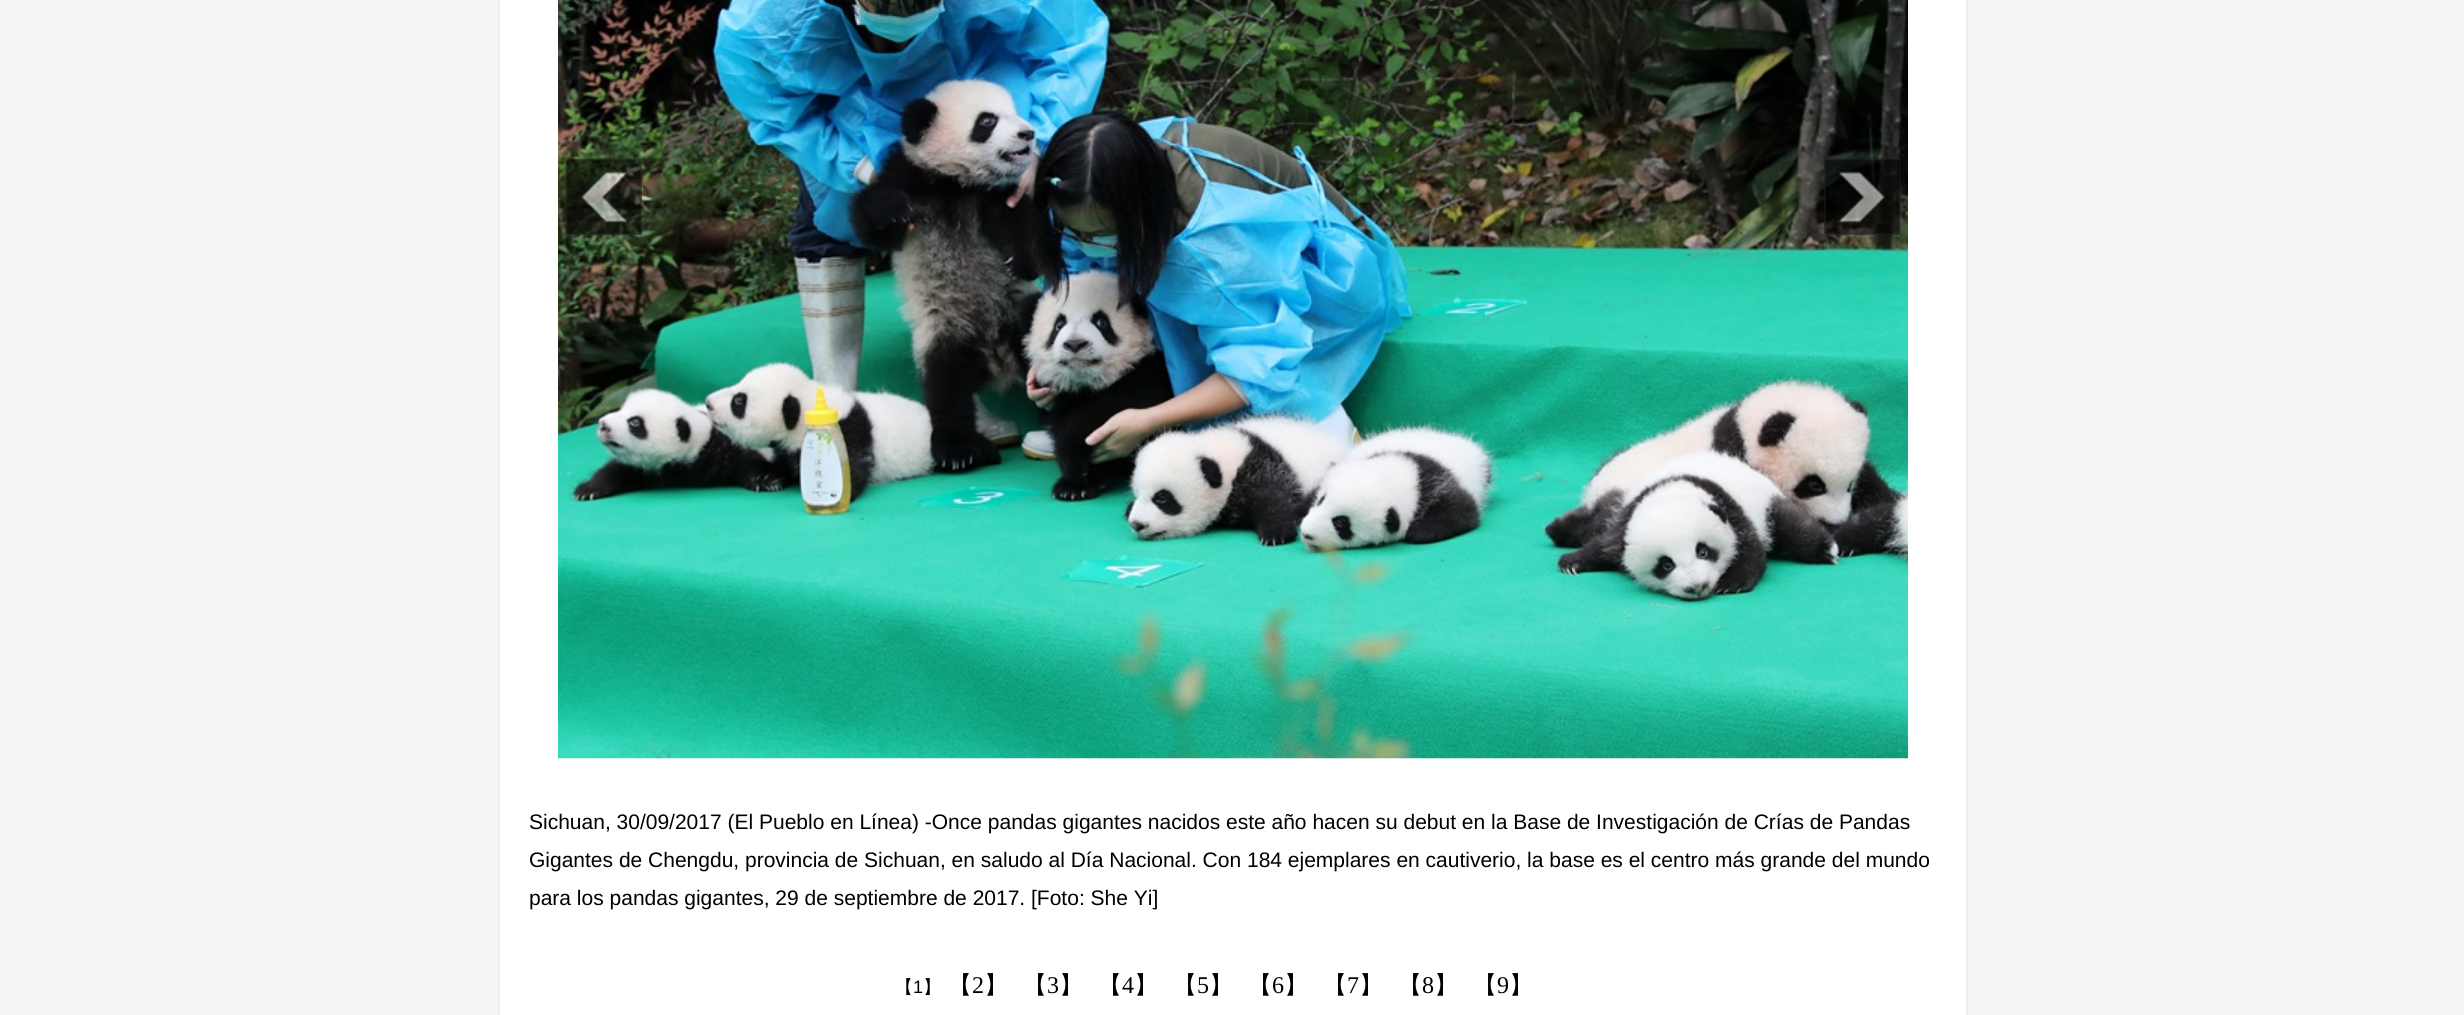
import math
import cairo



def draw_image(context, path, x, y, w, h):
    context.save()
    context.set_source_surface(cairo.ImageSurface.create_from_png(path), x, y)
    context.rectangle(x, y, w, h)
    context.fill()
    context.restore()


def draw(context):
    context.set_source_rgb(245 / 255, 245 / 255, 245 / 255)
    context.paint()
    context.set_source_rgb(1, 1, 1)
    context.rectangle(499, -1, 1468, 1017)
    context.fill_preserve()
    context.set_source_rgb(238 / 255, 238 / 255, 238 / 255)
    context.stroke()
    draw_image(context, "images/1.png", 558, 0, 1350, 759)
    draw_image(context, "images/2.png", 565, 158, 77, 77)
    draw_image(context, "images/3.png", 1824, 158, 77, 77)
    context.select_font_face("Liberation Sans")
    context.set_font_size(21)
    context.set_source_rgb(0, 0, 0)
    context.move_to(529, 829)
    context.show_text("Sichuan, 30/09/2017 (El Pueblo en Línea) -Once pandas gigantes nacidos este año hacen su debut en la Base de Investigación de Crías de Pandas")
    context.move_to(529, 867)
    context.show_text("Gigantes de Chengdu, provincia de Sichuan, en saludo al Día Nacional. Con 184 ejemplares en cautiverio, la base es el centro más grande del mundo")
    context.move_to(529, 905)
    context.show_text("para los pandas gigantes, 29 de septiembre de 2017. [Foto: She Yi]")
    context.select_font_face("WenQuanYi Zen Hei Medium")
    context.set_font_size(18)
    context.move_to(895, 993)
    context.show_text("【")
    context.select_font_face("Liberation Sans")
    context.move_to(913, 993)
    context.show_text("1")
    context.select_font_face("WenQuanYi Zen Hei Medium")
    context.move_to(923, 993)
    context.show_text("】")
    context.set_font_size(24)
    context.move_to(948, 993)
    context.show_text("【")
    context.select_font_face("Liberation Serif")
    context.move_to(972, 993)
    context.show_text("2")
    context.select_font_face("WenQuanYi Zen Hei Medium")
    context.move_to(984, 993)
    context.show_text("】")
    context.move_to(1023, 993)
    context.show_text("【")
    context.select_font_face("Liberation Serif")
    context.move_to(1047, 993)
    context.show_text("3")
    context.select_font_face("WenQuanYi Zen Hei Medium")
    context.move_to(1059, 993)
    context.show_text("】")
    context.move_to(1098, 993)
    context.show_text("【")
    context.select_font_face("Liberation Serif")
    context.move_to(1122, 993)
    context.show_text("4")
    context.select_font_face("WenQuanYi Zen Hei Medium")
    context.move_to(1134, 993)
    context.show_text("】")
    context.move_to(1173, 993)
    context.show_text("【")
    context.select_font_face("Liberation Serif")
    context.move_to(1197, 993)
    context.show_text("5")
    context.select_font_face("WenQuanYi Zen Hei Medium")
    context.move_to(1209, 993)
    context.show_text("】")
    context.move_to(1248, 993)
    context.show_text("【")
    context.select_font_face("Liberation Serif")
    context.move_to(1272, 993)
    context.show_text("6")
    context.select_font_face("WenQuanYi Zen Hei Medium")
    context.move_to(1284, 993)
    context.show_text("】")
    context.move_to(1323, 993)
    context.show_text("【")
    context.select_font_face("Liberation Serif")
    context.move_to(1347, 993)
    context.show_text("7")
    context.select_font_face("WenQuanYi Zen Hei Medium")
    context.move_to(1359, 993)
    context.show_text("】")
    context.move_to(1398, 993)
    context.show_text("【")
    context.select_font_face("Liberation Serif")
    context.move_to(1422, 993)
    context.show_text("8")
    context.select_font_face("WenQuanYi Zen Hei Medium")
    context.move_to(1434, 993)
    context.show_text("】")
    context.move_to(1473, 993)
    context.show_text("【")
    context.select_font_face("Liberation Serif")
    context.move_to(1497, 993)
    context.show_text("9")
    context.select_font_face("WenQuanYi Zen Hei Medium")
    context.move_to(1509, 993)
    context.show_text("】")


surface = cairo.ImageSurface(cairo.Format.RGB24, 2464, 1015)
context = cairo.Context(surface)
options = cairo.FontOptions()
options.set_hint_metrics(cairo.HintMetrics.OFF)
options.set_hint_style(cairo.HintStyle.NONE)
context.set_font_options(options)
context.set_miter_limit(4)
draw(context)
surface.write_to_png("out.png")
